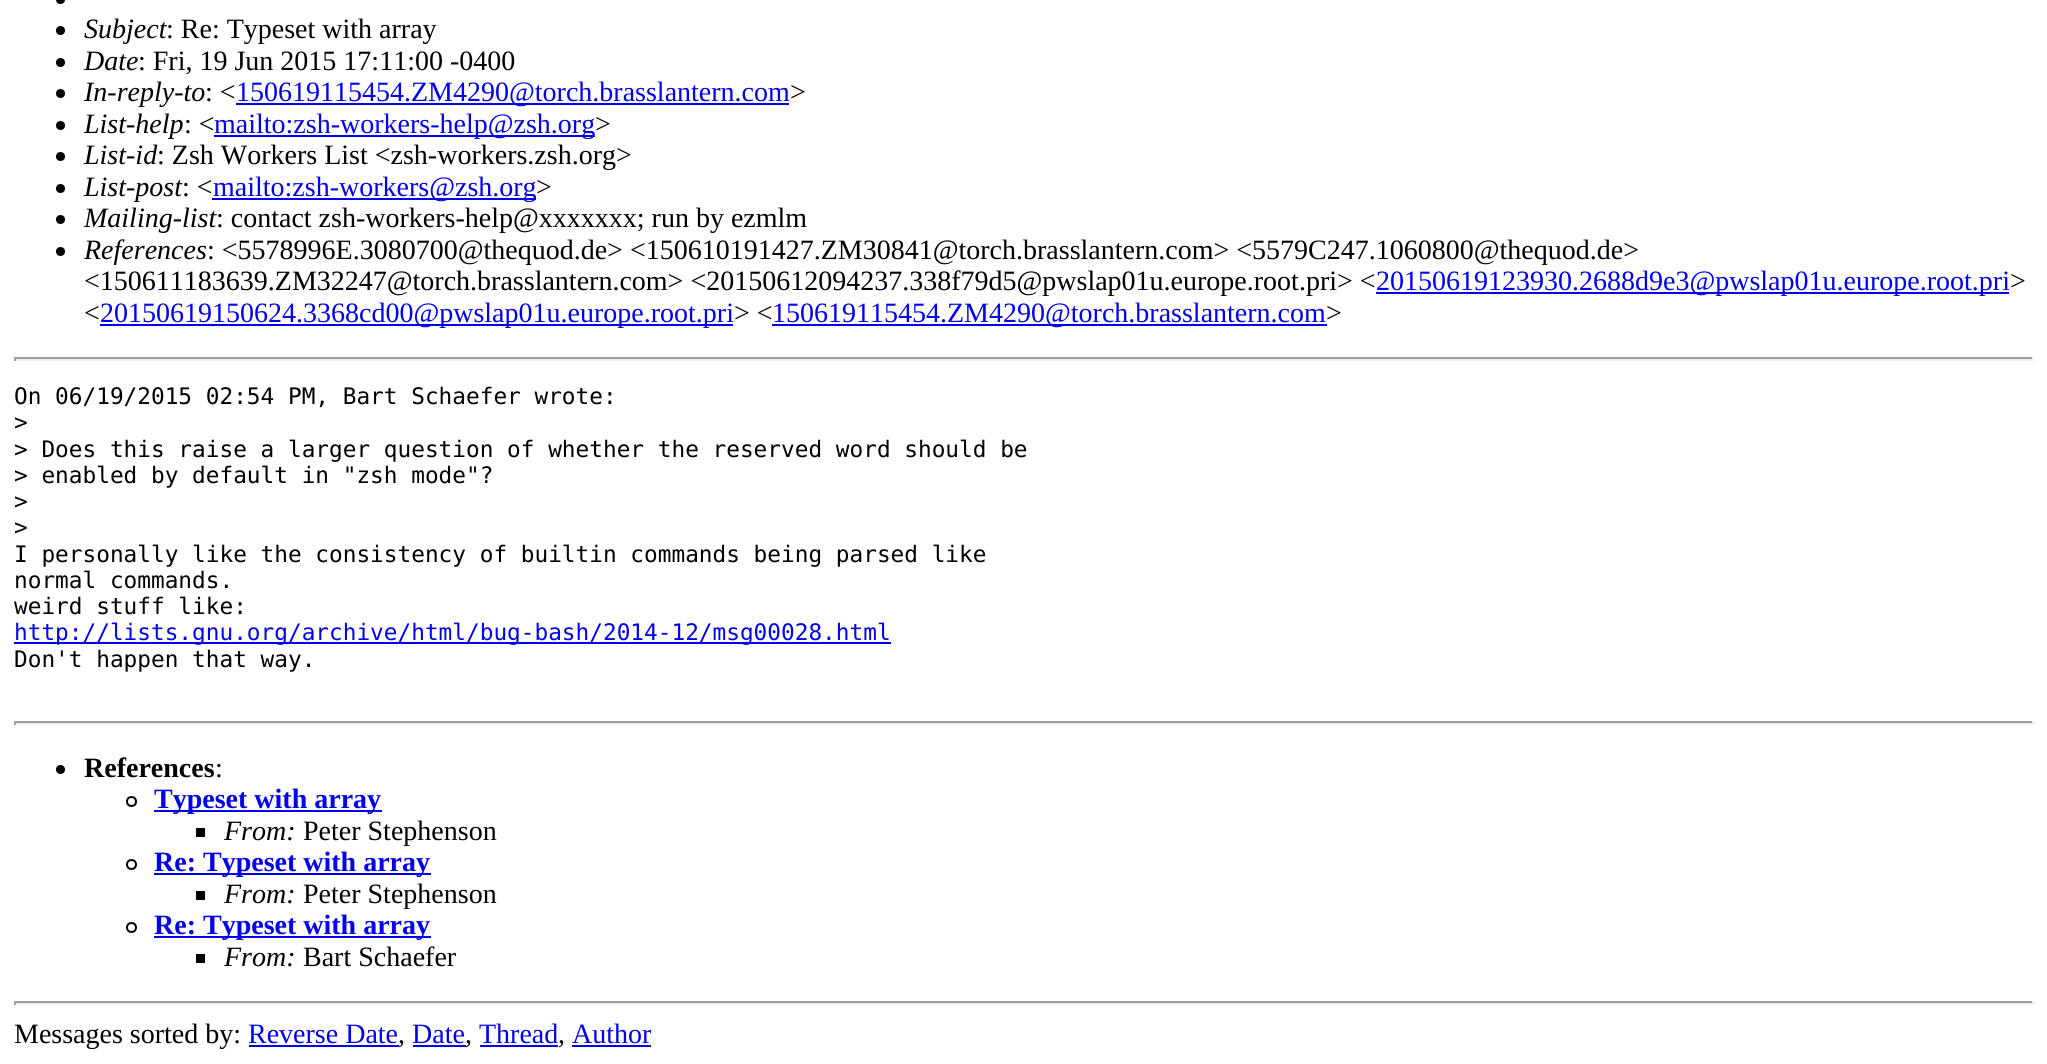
import math
import cairo



def draw(context):
    context.set_source_rgb(1, 1, 1)
    context.paint()
    context.set_source_rgb(0, 0, 0)
    context.arc(60.5, -0.5, 4.5, 0, 2 * math.pi)
    context.fill()
    context.arc(60.5, 30.5, 4.5, 0, 2 * math.pi)
    context.fill()
    context.arc(60.5, 62.5, 4.5, 0, 2 * math.pi)
    context.fill()
    context.arc(60.5, 93.5, 4.5, 0, 2 * math.pi)
    context.fill()
    context.set_source_rgb(0, 0, 238 / 255)
    context.rectangle(236, 103, 553, 2)
    context.fill()
    context.set_source_rgb(0, 0, 0)
    context.arc(60.5, 125.5, 4.5, 0, 2 * math.pi)
    context.fill()
    context.set_source_rgb(0, 0, 238 / 255)
    context.rectangle(214, 135, 381, 2)
    context.fill()
    context.set_source_rgb(0, 0, 0)
    context.arc(60.5, 156.5, 4.5, 0, 2 * math.pi)
    context.fill()
    context.arc(60.5, 188.5, 4.5, 0, 2 * math.pi)
    context.fill()
    context.set_source_rgb(0, 0, 238 / 255)
    context.rectangle(212, 198, 324, 2)
    context.fill()
    context.set_source_rgb(0, 0, 0)
    context.arc(60.5, 219.5, 4.5, 0, 2 * math.pi)
    context.fill()
    context.arc(60.5, 251.5, 4.5, 0, 2 * math.pi)
    context.fill()
    context.set_source_rgb(0, 0, 238 / 255)
    context.rectangle(1376, 292, 633, 2)
    context.fill()
    context.rectangle(100, 324, 633, 2)
    context.fill()
    context.rectangle(772, 324, 555, 2)
    context.fill()
    context.set_source_rgb(159 / 255, 159 / 255, 159 / 255)
    context.rectangle(14, 357, 2020, 2)
    context.fill()
    context.set_source_rgb(238 / 255, 238 / 255, 238 / 255)
    context.rectangle(2032, 357, 2, 4)
    context.fill()
    context.rectangle(14, 359, 2020, 2)
    context.fill()
    context.set_source_rgb(159 / 255, 159 / 255, 159 / 255)
    context.rectangle(14, 357, 2, 4)
    context.fill()
    context.set_source_rgb(0, 0, 238 / 255)
    context.rectangle(14, 642, 877, 2)
    context.fill()
    context.set_source_rgb(159 / 255, 159 / 255, 159 / 255)
    context.rectangle(14, 721, 2020, 2)
    context.fill()
    context.set_source_rgb(238 / 255, 238 / 255, 238 / 255)
    context.rectangle(2032, 721, 2, 4)
    context.fill()
    context.rectangle(14, 723, 2020, 2)
    context.fill()
    context.set_source_rgb(159 / 255, 159 / 255, 159 / 255)
    context.rectangle(14, 721, 2, 4)
    context.fill()
    context.set_source_rgb(0, 0, 0)
    context.arc(60.5, 769.5, 4.5, 0, 2 * math.pi)
    context.fill()
    context.arc(131.5, 801.5, 4.5, 0, 2 * math.pi)
    context.stroke()
    context.set_source_rgb(0, 0, 238 / 255)
    context.rectangle(154, 810, 228, 2)
    context.fill()
    context.set_source_rgb(0, 0, 0)
    context.rectangle(196, 828, 9, 9)
    context.fill()
    context.arc(131.5, 864.5, 4.5, 0, 2 * math.pi)
    context.stroke()
    context.set_source_rgb(0, 0, 238 / 255)
    context.rectangle(154, 873, 277, 2)
    context.fill()
    context.set_source_rgb(0, 0, 0)
    context.rectangle(196, 891, 9, 9)
    context.fill()
    context.arc(131.5, 927.5, 4.5, 0, 2 * math.pi)
    context.stroke()
    context.set_source_rgb(0, 0, 238 / 255)
    context.rectangle(154, 936, 277, 2)
    context.fill()
    context.set_source_rgb(0, 0, 0)
    context.rectangle(196, 954, 9, 9)
    context.fill()
    context.set_source_rgb(159 / 255, 159 / 255, 159 / 255)
    context.rectangle(14, 1001, 2020, 2)
    context.fill()
    context.set_source_rgb(238 / 255, 238 / 255, 238 / 255)
    context.rectangle(2032, 1001, 2, 4)
    context.fill()
    context.rectangle(14, 1003, 2020, 2)
    context.fill()
    context.set_source_rgb(159 / 255, 159 / 255, 159 / 255)
    context.rectangle(14, 1001, 2, 4)
    context.fill()
    context.set_source_rgb(0, 0, 238 / 255)
    context.rectangle(249, 1045, 150, 2)
    context.fill()
    context.rectangle(413, 1045, 53, 2)
    context.fill()
    context.rectangle(480, 1045, 78, 2)
    context.fill()
    context.rectangle(572, 1045, 79, 2)
    context.fill()
    context.select_font_face("Liberation Serif", cairo.FontSlant.ITALIC)
    context.set_font_size(28)
    context.set_source_rgb(0, 0, 0)
    context.move_to(84, 38)
    context.show_text("Subject")
    context.select_font_face("Liberation Serif")
    context.move_to(166, 38)
    context.show_text(": Re: Typeset with array")
    context.select_font_face("Liberation Serif", cairo.FontSlant.ITALIC)
    context.move_to(84, 70)
    context.show_text("Date")
    context.select_font_face("Liberation Serif")
    context.move_to(138, 70)
    context.show_text(": Fri, 19 Jun 2015 17:11:00 -0400")
    context.select_font_face("Liberation Serif", cairo.FontSlant.ITALIC)
    context.move_to(84, 101)
    context.show_text("In-reply-to")
    context.select_font_face("Liberation Serif")
    context.move_to(205, 101)
    context.show_text(": <")
    context.set_source_rgb(0, 0, 238 / 255)
    context.move_to(236, 101)
    context.show_text("150619115454.ZM4290@torch.brasslantern.com")
    context.set_source_rgb(0, 0, 0)
    context.move_to(790, 101)
    context.show_text(">")
    context.select_font_face("Liberation Serif", cairo.FontSlant.ITALIC)
    context.move_to(84, 133)
    context.show_text("List-help")
    context.select_font_face("Liberation Serif")
    context.move_to(184, 133)
    context.show_text(": <")
    context.set_source_rgb(0, 0, 238 / 255)
    context.move_to(214, 133)
    context.show_text("mailto:zsh-workers-help@zsh.org")
    context.set_source_rgb(0, 0, 0)
    context.move_to(595, 133)
    context.show_text(">")
    context.select_font_face("Liberation Serif", cairo.FontSlant.ITALIC)
    context.move_to(84, 164)
    context.show_text("List-id")
    context.select_font_face("Liberation Serif")
    context.move_to(157, 164)
    context.show_text(": Zsh Workers List <zsh-workers.zsh.org>")
    context.select_font_face("Liberation Serif", cairo.FontSlant.ITALIC)
    context.move_to(84, 196)
    context.show_text("List-post")
    context.select_font_face("Liberation Serif")
    context.move_to(182, 196)
    context.show_text(": <")
    context.set_source_rgb(0, 0, 238 / 255)
    context.move_to(213, 196)
    context.show_text("mailto:zsh-workers@zsh.org")
    context.set_source_rgb(0, 0, 0)
    context.move_to(536, 196)
    context.show_text(">")
    context.select_font_face("Liberation Serif", cairo.FontSlant.ITALIC)
    context.move_to(84, 227)
    context.show_text("Mailing-list")
    context.select_font_face("Liberation Serif")
    context.move_to(216, 227)
    context.show_text(": contact zsh-workers-help@xxxxxxx; run by ezmlm")
    context.select_font_face("Liberation Serif", cairo.FontSlant.ITALIC)
    context.move_to(84, 259)
    context.show_text("References")
    context.select_font_face("Liberation Serif")
    context.move_to(207, 259)
    context.show_text(": <5578996E.3080700@thequod.de> <150610191427.ZM30841@torch.brasslantern.com> <5579C247.1060800@thequod.de>")
    context.move_to(84, 290)
    context.show_text("<150611183639.ZM32247@torch.brasslantern.com> <20150612094237.338f79d5@pwslap01u.europe.root.pri> <")
    context.set_source_rgb(0, 0, 238 / 255)
    context.move_to(1376, 290)
    context.show_text("20150619123930.2688d9e3@pwslap01u.europe.root.pri")
    context.set_source_rgb(0, 0, 0)
    context.move_to(2010, 290)
    context.show_text(">")
    context.move_to(84, 322)
    context.show_text("<")
    context.set_source_rgb(0, 0, 238 / 255)
    context.move_to(100, 322)
    context.show_text("20150619150624.3368cd00@pwslap01u.europe.root.pri")
    context.set_source_rgb(0, 0, 0)
    context.move_to(734, 322)
    context.show_text("> <")
    context.set_source_rgb(0, 0, 238 / 255)
    context.move_to(772, 322)
    context.show_text("150619115454.ZM4290@torch.brasslantern.com")
    context.set_source_rgb(0, 0, 0)
    context.move_to(1326, 322)
    context.show_text(">")
    context.select_font_face("DejaVu Sans Mono")
    context.set_font_size(22.75)
    context.move_to(14, 404)
    context.show_text("On 06/19/2015 02:54 PM, Bart Schaefer wrote:")
    context.move_to(14, 430)
    context.show_text(">")
    context.move_to(14, 457)
    context.show_text("> Does this raise a larger question of whether the reserved word should be")
    context.move_to(14, 483)
    context.show_text("> enabled by default in \"zsh mode\"?")
    context.move_to(14, 509)
    context.show_text(">")
    context.move_to(14, 535)
    context.show_text(">")
    context.move_to(14, 562)
    context.show_text("I personally like the consistency of builtin commands being parsed like")
    context.move_to(14, 588)
    context.show_text("normal commands.")
    context.move_to(14, 614)
    context.show_text("weird stuff like:")
    context.set_source_rgb(0, 0, 238 / 255)
    context.move_to(14, 640)
    context.show_text("http://lists.gnu.org/archive/html/bug-bash/2014-12/msg00028.html")
    context.set_source_rgb(0, 0, 0)
    context.move_to(14, 667)
    context.show_text("Don't happen that way.")
    context.select_font_face("Liberation Serif", cairo.FontSlant.NORMAL, cairo.FontWeight.BOLD)
    context.set_font_size(28)
    context.move_to(84, 777)
    context.show_text("References")
    context.select_font_face("Liberation Serif")
    context.move_to(215, 777)
    context.show_text(":")
    context.select_font_face("Liberation Serif", cairo.FontSlant.NORMAL, cairo.FontWeight.BOLD)
    context.set_source_rgb(0, 0, 238 / 255)
    context.move_to(154, 808)
    context.show_text("Typeset with array")
    context.select_font_face("Liberation Serif", cairo.FontSlant.ITALIC)
    context.set_source_rgb(0, 0, 0)
    context.move_to(224, 840)
    context.show_text("From:")
    context.select_font_face("Liberation Serif")
    context.move_to(303, 840)
    context.show_text("Peter Stephenson")
    context.select_font_face("Liberation Serif", cairo.FontSlant.NORMAL, cairo.FontWeight.BOLD)
    context.set_source_rgb(0, 0, 238 / 255)
    context.move_to(154, 871)
    context.show_text("Re: Typeset with array")
    context.select_font_face("Liberation Serif", cairo.FontSlant.ITALIC)
    context.set_source_rgb(0, 0, 0)
    context.move_to(224, 903)
    context.show_text("From:")
    context.select_font_face("Liberation Serif")
    context.move_to(303, 903)
    context.show_text("Peter Stephenson")
    context.select_font_face("Liberation Serif", cairo.FontSlant.NORMAL, cairo.FontWeight.BOLD)
    context.set_source_rgb(0, 0, 238 / 255)
    context.move_to(154, 934)
    context.show_text("Re: Typeset with array")
    context.select_font_face("Liberation Serif", cairo.FontSlant.ITALIC)
    context.set_source_rgb(0, 0, 0)
    context.move_to(224, 966)
    context.show_text("From:")
    context.select_font_face("Liberation Serif")
    context.move_to(303, 966)
    context.show_text("Bart Schaefer")
    context.move_to(14, 1043)
    context.show_text("Messages sorted by:")
    context.set_source_rgb(0, 0, 238 / 255)
    context.move_to(248, 1043)
    context.show_text("Reverse Date")
    context.set_source_rgb(0, 0, 0)
    context.move_to(398, 1043)
    context.show_text(",")
    context.set_source_rgb(0, 0, 238 / 255)
    context.move_to(412, 1043)
    context.show_text("Date")
    context.set_source_rgb(0, 0, 0)
    context.move_to(465, 1043)
    context.show_text(",")
    context.set_source_rgb(0, 0, 238 / 255)
    context.move_to(479, 1043)
    context.show_text("Thread")
    context.set_source_rgb(0, 0, 0)
    context.move_to(558, 1043)
    context.show_text(",")
    context.set_source_rgb(0, 0, 238 / 255)
    context.move_to(572, 1043)
    context.show_text("Author")


surface = cairo.ImageSurface(cairo.Format.RGB24, 2047, 1064)
context = cairo.Context(surface)
options = cairo.FontOptions()
options.set_hint_metrics(cairo.HintMetrics.OFF)
options.set_hint_style(cairo.HintStyle.NONE)
context.set_font_options(options)
context.set_miter_limit(4)
draw(context)
surface.write_to_png("out.png")
